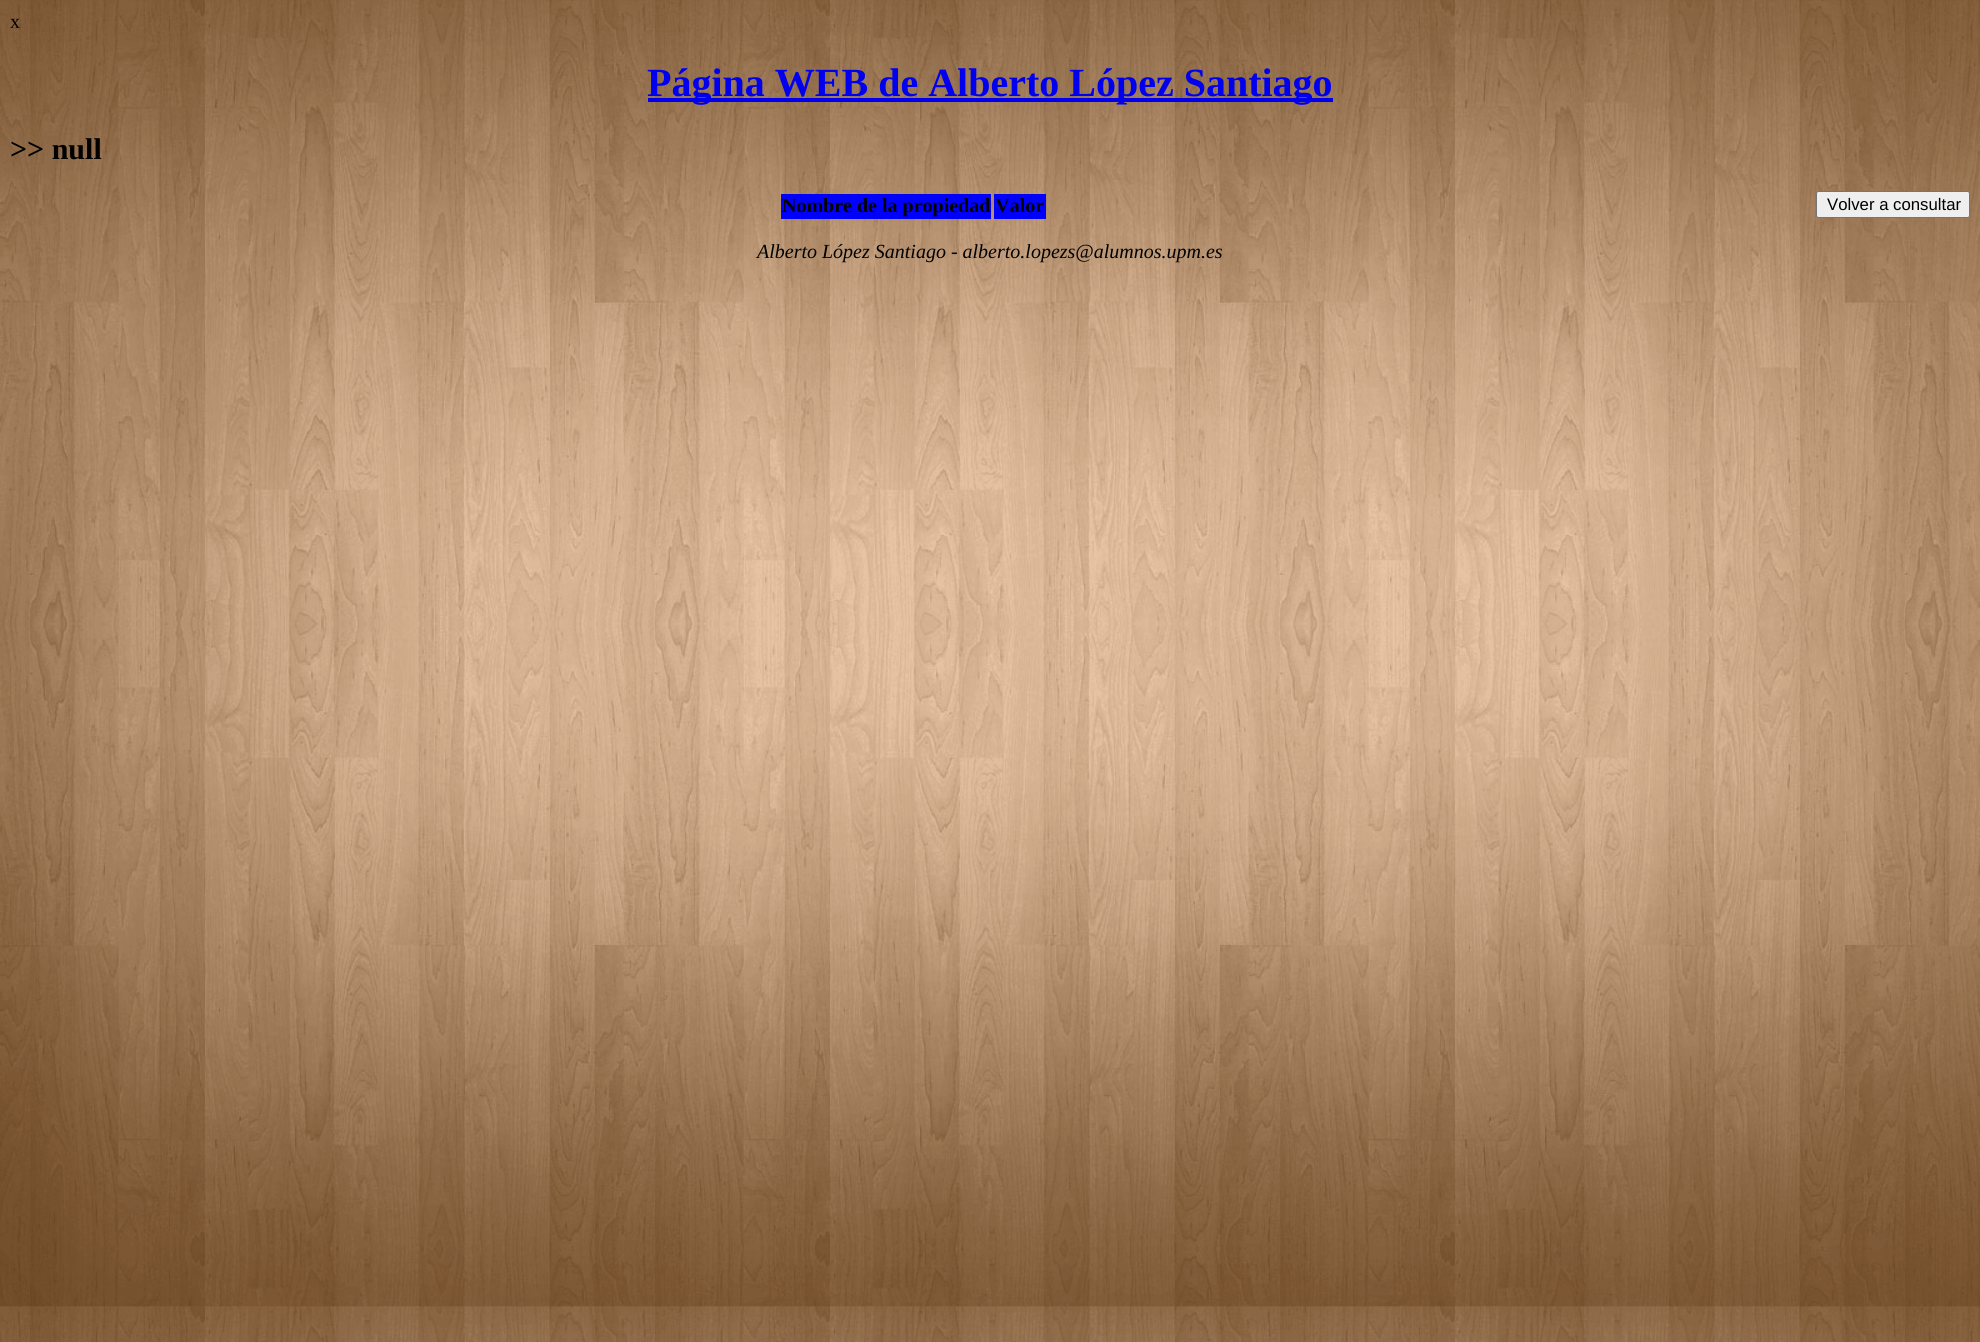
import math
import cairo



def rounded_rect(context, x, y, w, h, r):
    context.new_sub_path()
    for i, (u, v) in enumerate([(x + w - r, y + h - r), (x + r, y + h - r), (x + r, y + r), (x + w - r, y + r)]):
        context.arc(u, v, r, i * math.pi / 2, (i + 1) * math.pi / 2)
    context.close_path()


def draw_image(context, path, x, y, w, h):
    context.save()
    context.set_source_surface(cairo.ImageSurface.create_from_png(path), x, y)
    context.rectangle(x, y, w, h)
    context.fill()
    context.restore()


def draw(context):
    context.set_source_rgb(1, 1, 1)
    context.paint()
    draw_image(context, "images/1.png", 0, 0, 1980, 1342)
    context.set_source_rgb(0, 0, 238 / 255)
    context.rectangle(648, 98, 685, 4)
    context.fill()
    context.set_source_rgb(0, 0, 1)
    context.rectangle(994, 194, 52, 25)
    context.fill()
    context.rectangle(781, 194, 210, 25)
    context.fill()
    context.set_source_rgb(239 / 255, 239 / 255, 239 / 255)
    rounded_rect(context, 1816.5, 191.5, 153, 26, 2)
    context.fill_preserve()
    context.set_source_rgb(118 / 255, 118 / 255, 118 / 255)
    context.set_line_width(1)
    context.stroke()
    context.select_font_face("Liberation Serif")
    context.set_font_size(20)
    context.set_source_rgb(0, 0, 0)
    context.move_to(10, 28)
    context.show_text("x")
    context.select_font_face("Liberation Serif", cairo.FontSlant.NORMAL, cairo.FontWeight.BOLD)
    context.set_font_size(40)
    context.set_source_rgb(0, 0, 238 / 255)
    context.move_to(647, 96)
    context.show_text("Página WEB de Alberto López Santiago")
    context.set_font_size(30)
    context.set_source_rgb(0, 0, 0)
    context.move_to(10, 159)
    context.show_text(">> null")
    context.set_font_size(20)
    context.move_to(782, 212)
    context.show_text("Nombre de la propiedad Valor")
    context.select_font_face("Liberation Sans")
    context.set_font_size(16.75)
    context.move_to(1827, 210)
    context.show_text("Volver a consultar")
    context.select_font_face("Liberation Serif", cairo.FontSlant.ITALIC)
    context.set_font_size(20)
    context.move_to(757, 258)
    context.show_text("Alberto López Santiago - alberto.lopezs@alumnos.upm.es")


surface = cairo.ImageSurface(cairo.Format.RGB24, 1980, 1342)
context = cairo.Context(surface)
options = cairo.FontOptions()
options.set_hint_metrics(cairo.HintMetrics.OFF)
options.set_hint_style(cairo.HintStyle.NONE)
context.set_font_options(options)
context.set_miter_limit(4)
draw(context)
surface.write_to_png("out.png")
